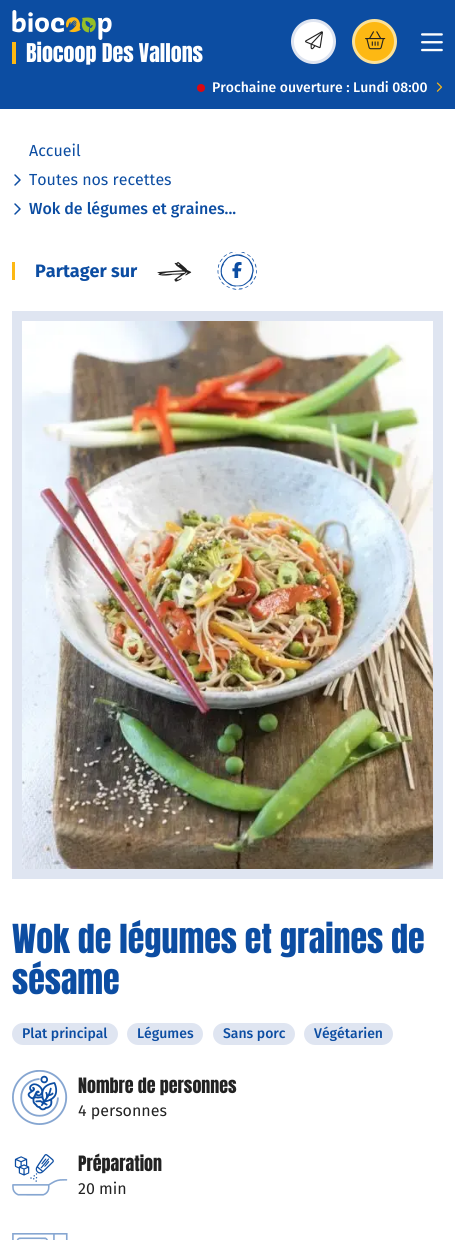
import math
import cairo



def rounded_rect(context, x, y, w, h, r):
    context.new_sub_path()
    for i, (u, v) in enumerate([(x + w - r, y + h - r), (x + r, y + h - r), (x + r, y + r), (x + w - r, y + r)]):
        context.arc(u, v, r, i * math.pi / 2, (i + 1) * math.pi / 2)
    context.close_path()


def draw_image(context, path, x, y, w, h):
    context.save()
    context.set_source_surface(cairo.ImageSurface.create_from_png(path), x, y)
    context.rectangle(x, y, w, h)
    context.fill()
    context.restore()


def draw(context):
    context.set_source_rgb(1, 1, 1)
    context.paint()
    context.set_source_rgb(12 / 255, 77 / 255, 162 / 255)
    context.rectangle(0, 0, 455, 109)
    context.fill()
    draw_image(context, "images/1.png", 12, 10, 100, 30)
    context.set_source_rgb(253 / 255, 184 / 255, 19 / 255)
    context.rectangle(12, 42, 4, 22)
    context.fill()
    context.set_source_rgb(1, 1, 1)
    context.arc(313.5, 41.5, 21, 0, 2 * math.pi)
    context.fill_preserve()
    context.set_source_rgb(223 / 255, 229 / 255, 241 / 255)
    context.set_line_width(3)
    context.stroke()
    draw_image(context, "images/2.png", 305, 31, 18, 19)
    context.set_source_rgb(253 / 255, 184 / 255, 19 / 255)
    context.arc(374.5, 41.5, 21, 0, 2 * math.pi)
    context.fill_preserve()
    context.set_source_rgb(252 / 255, 225 / 255, 151 / 255)
    context.stroke()
    draw_image(context, "images/3.png", 365, 31, 21, 19)
    draw_image(context, "images/4.png", 421, 33, 22, 19)
    context.set_source_rgb(218 / 255, 8 / 255, 18 / 255)
    context.arc(201, 88, 4, 0, 2 * math.pi)
    context.fill()
    draw_image(context, "images/5.png", 436, 82, 7, 10)
    draw_image(context, "images/6.png", 14, 174, 7, 12)
    draw_image(context, "images/6.png", 14, 203, 7, 12)
    context.set_source_rgb(253 / 255, 184 / 255, 19 / 255)
    context.rectangle(12, 262, 3, 18)
    context.fill()
    draw_image(context, "images/7.png", 157, 261, 35, 21)
    draw_image(context, "images/8.png", 217, 252, 40, 38)
    draw_image(context, "images/9.png", 232, 262, 10, 16)
    context.rectangle(17, 316, 421, 558)
    context.set_source_rgb(223 / 255, 229 / 255, 241 / 255)
    context.set_line_width(10)
    context.stroke()
    draw_image(context, "images/10.png", 22, 321, 411, 548)
    rounded_rect(context, 12, 1023, 106, 22, 11)
    context.fill()
    rounded_rect(context, 127, 1023, 76, 22, 11)
    context.fill()
    rounded_rect(context, 213, 1023, 82, 22, 11)
    context.fill()
    rounded_rect(context, 304, 1023, 89, 22, 11)
    context.fill()
    draw_image(context, "images/11.png", 12, 1070, 56, 55)
    draw_image(context, "images/12.png", 12, 1154, 56, 42)
    draw_image(context, "images/13.png", 12, 1233, 56, 7)
    context.select_font_face("Anton")
    context.set_font_size(22)
    context.set_source_rgb(1, 1, 1)
    context.move_to(26, 62)
    context.show_text("Biocoop Des Vallons")
    context.select_font_face("Fira Sans Medium")
    context.set_font_size(14)
    context.move_to(212, 92)
    context.show_text("Prochaine ouverture : Lundi 08:00")
    context.select_font_face("Fira Sans")
    context.set_font_size(16)
    context.set_source_rgb(12 / 255, 77 / 255, 162 / 255)
    context.move_to(29, 156)
    context.show_text("Accueil")
    context.move_to(29, 185)
    context.show_text("Toutes nos recettes")
    context.select_font_face("Fira Sans Medium")
    context.move_to(29, 214)
    context.show_text("Wok de légumes et graines...")
    context.select_font_face("Fira Sans", cairo.FontSlant.NORMAL, cairo.FontWeight.BOLD)
    context.set_font_size(18)
    context.move_to(35, 277)
    context.show_text("Partager sur")
    context.select_font_face("Anton")
    context.set_font_size(34)
    context.move_to(12, 953)
    context.show_text("Wok de légumes et graines de")
    context.move_to(12, 994)
    context.show_text("sésame")
    context.select_font_face("Fira Sans Medium")
    context.set_font_size(14)
    context.move_to(22, 1038)
    context.show_text("Plat principal")
    context.move_to(137, 1038)
    context.show_text("Légumes")
    context.move_to(223, 1038)
    context.show_text("Sans porc")
    context.move_to(314, 1038)
    context.show_text("Végétarien")
    context.select_font_face("Anton")
    context.set_font_size(18)
    context.set_source_rgb(34 / 255, 34 / 255, 34 / 255)
    context.move_to(78, 1093)
    context.show_text("Nombre de personnes")
    context.select_font_face("Fira Sans")
    context.set_font_size(16)
    context.move_to(78, 1116)
    context.show_text("4 personnes")
    context.select_font_face("Anton")
    context.set_font_size(18)
    context.move_to(78, 1171)
    context.show_text("Préparation")
    context.select_font_face("Fira Sans")
    context.set_font_size(16)
    context.move_to(78, 1194)
    context.show_text("20 min")


surface = cairo.ImageSurface(cairo.Format.RGB24, 455, 1240)
context = cairo.Context(surface)
options = cairo.FontOptions()
options.set_hint_metrics(cairo.HintMetrics.OFF)
options.set_hint_style(cairo.HintStyle.NONE)
context.set_font_options(options)
context.set_miter_limit(4)
draw(context)
surface.write_to_png("out.png")
